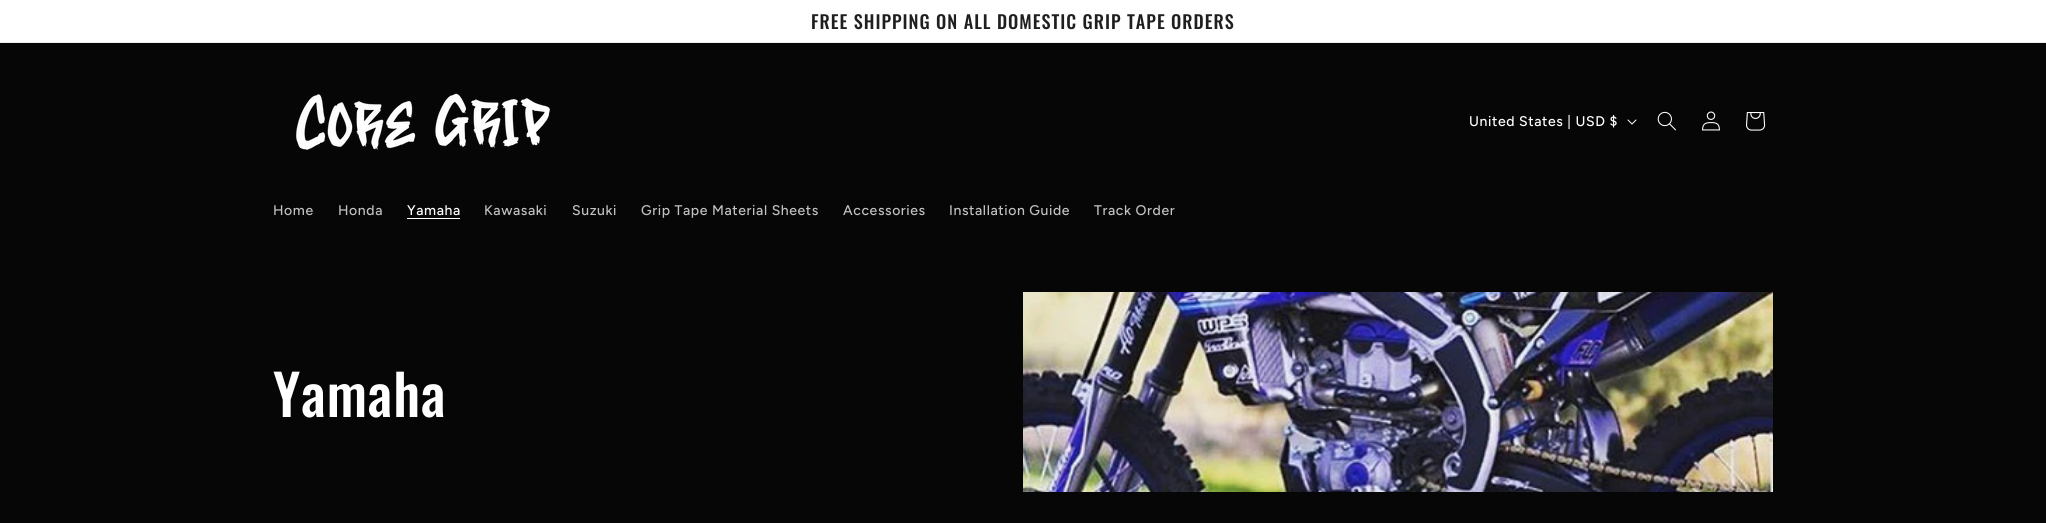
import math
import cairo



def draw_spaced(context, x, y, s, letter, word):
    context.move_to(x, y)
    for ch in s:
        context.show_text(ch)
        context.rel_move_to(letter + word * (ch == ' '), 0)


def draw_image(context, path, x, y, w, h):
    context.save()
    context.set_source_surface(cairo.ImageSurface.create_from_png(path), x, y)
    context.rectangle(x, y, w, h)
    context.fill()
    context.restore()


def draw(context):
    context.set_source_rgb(6 / 255, 6 / 255, 6 / 255)
    context.paint()
    context.set_source_rgb(1, 1, 1)
    context.rectangle(0, 0, 2046, 42)
    context.fill()
    context.set_source_rgb(237 / 255, 237 / 255, 237 / 255)
    context.rectangle(0, 42, 2046, 1)
    context.fill()
    draw_image(context, "images/1.png", 296, 93, 254, 57)
    draw_image(context, "images/2.png", 1627, 119, 10, 6)
    draw_image(context, "images/3.png", 1657, 111, 19, 20)
    draw_image(context, "images/4.png", 1702, 111, 18, 20)
    draw_image(context, "images/5.png", 1746, 112, 20, 19)
    context.set_source_rgb(1, 1, 1)
    context.rectangle(407, 218, 53, 1)
    context.fill()
    draw_image(context, "images/6.png", 1023, 292, 750, 200)
    context.select_font_face("Oswald Medium")
    context.set_font_size(18.2)
    context.set_source_rgb(31 / 255, 31 / 255, 33 / 255)
    draw_spaced(context, 811, 29, "FREE SHIPPING ON ALL DOMESTIC GRIP TAPE ORDERS", 1, 0)
    context.select_font_face("Figtree Medium")
    context.set_font_size(14)
    context.set_source_rgb(1, 1, 1)
    draw_spaced(context, 1469, 126, "United States | USD $", 0.6, 0)
    context.set_source_rgb(193 / 255, 193 / 255, 193 / 255)
    draw_spaced(context, 273, 215, "Home", 0.6, 0)
    draw_spaced(context, 338, 215, "Honda", 0.6, 0)
    context.set_source_rgb(1, 1, 1)
    draw_spaced(context, 407, 215, "Yamaha", 0.6, 0)
    context.set_source_rgb(193 / 255, 193 / 255, 193 / 255)
    draw_spaced(context, 484, 215, "Kawasaki", 0.6, 0)
    draw_spaced(context, 572, 215, "Suzuki", 0.6, 0)
    draw_spaced(context, 641, 215, "Grip Tape Material Sheets", 0.6, 0)
    draw_spaced(context, 843, 215, "Accessories", 0.6, 0)
    draw_spaced(context, 949, 215, "Installation Guide", 0.6, 0)
    draw_spaced(context, 1094, 215, "Track Order", 0.6, 0)
    context.select_font_face("Oswald Medium")
    context.set_font_size(56)
    context.set_source_rgb(1, 1, 1)
    draw_spaced(context, 273, 417, "Yamaha", 1, 0)


surface = cairo.ImageSurface(cairo.Format.RGB24, 2046, 523)
context = cairo.Context(surface)
options = cairo.FontOptions()
options.set_hint_metrics(cairo.HintMetrics.OFF)
options.set_hint_style(cairo.HintStyle.NONE)
context.set_font_options(options)
context.set_miter_limit(4)
draw(context)
surface.write_to_png("out.png")
